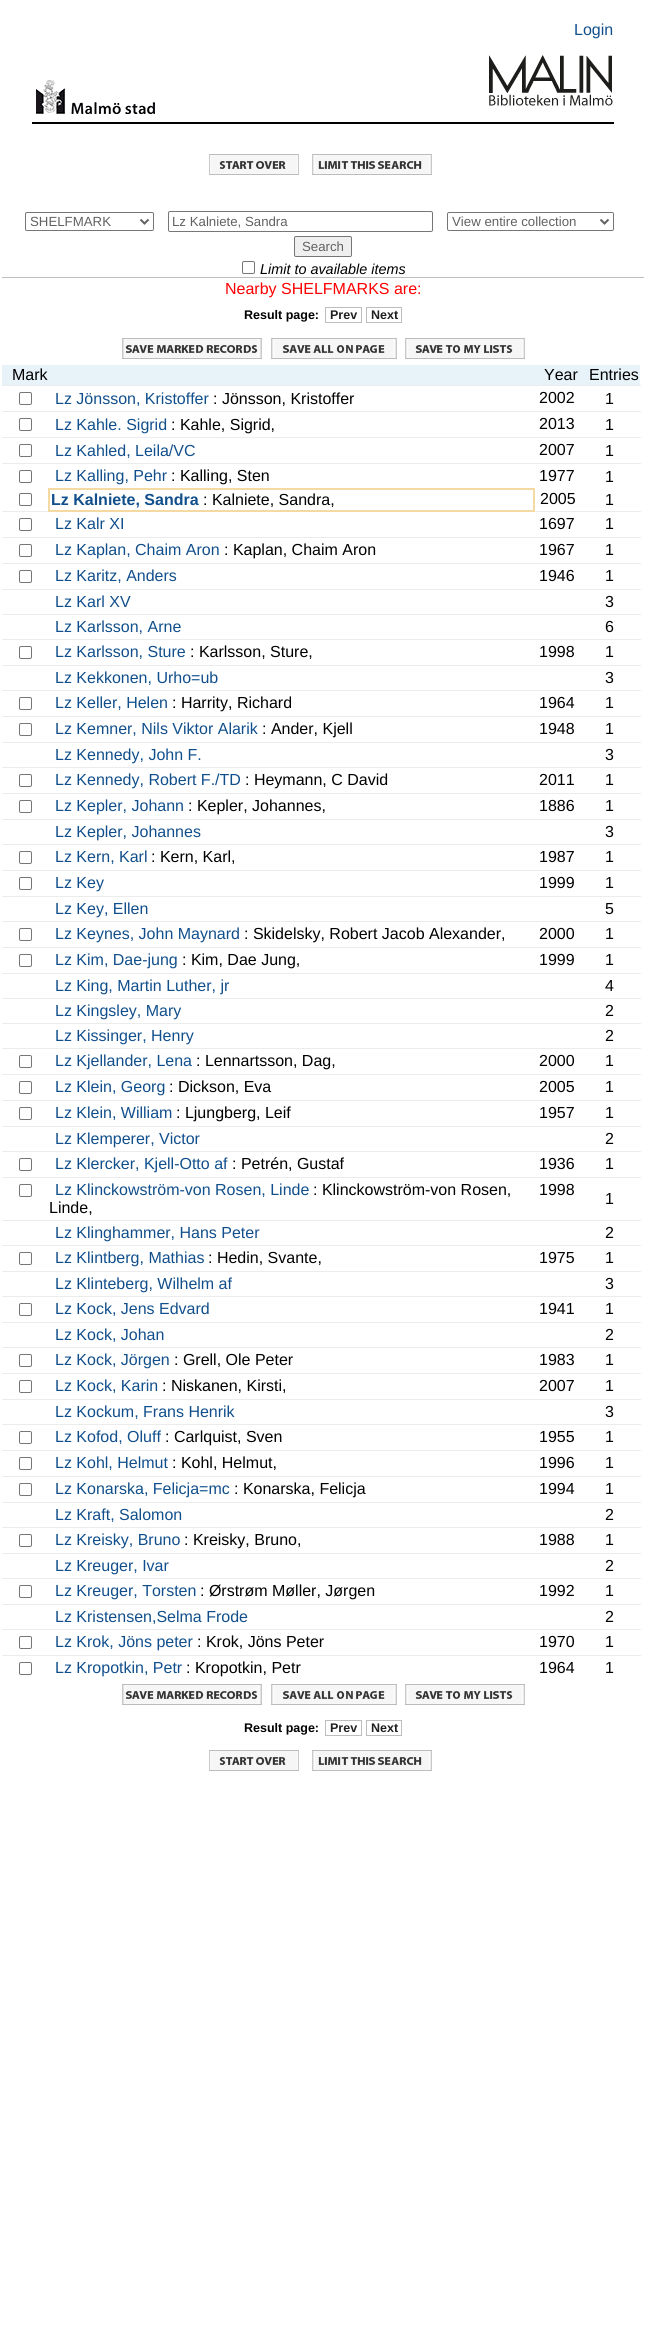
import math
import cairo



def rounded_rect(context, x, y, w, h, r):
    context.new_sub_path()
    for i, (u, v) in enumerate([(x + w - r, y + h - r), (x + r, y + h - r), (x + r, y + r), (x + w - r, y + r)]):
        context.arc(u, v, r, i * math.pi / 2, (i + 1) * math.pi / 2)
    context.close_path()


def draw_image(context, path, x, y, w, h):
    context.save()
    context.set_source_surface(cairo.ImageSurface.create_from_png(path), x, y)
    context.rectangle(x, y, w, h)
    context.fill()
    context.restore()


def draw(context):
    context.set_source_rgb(1, 1, 1)
    context.paint()
    draw_image(context, "images/1.png", 36, 80, 119, 34)
    draw_image(context, "images/2.png", 489, 55, 124, 51)
    context.set_source_rgb(0, 0, 0)
    context.rectangle(32, 122, 582, 2)
    context.fill()
    draw_image(context, "images/3.png", 209, 154, 90, 21)
    draw_image(context, "images/4.png", 312, 154, 120, 21)
    context.set_source_rgb(189 / 255, 189 / 255, 189 / 255)
    context.rectangle(2, 277, 642, 1)
    context.fill()
    rounded_rect(context, 25.5, 212.5, 128, 18, 1.5)
    context.set_source_rgb(118 / 255, 118 / 255, 118 / 255)
    context.set_line_width(1)
    context.stroke()
    context.new_path()
    context.move_to(140.5, 219.5)
    context.line_to(144.5, 223.5)
    context.line_to(148.5, 219.5)
    context.set_source_rgb(97 / 255, 97 / 255, 97 / 255)
    context.set_line_width(2)
    context.stroke()
    rounded_rect(context, 168.5, 211.5, 264, 20, 1.5)
    context.set_source_rgb(118 / 255, 118 / 255, 118 / 255)
    context.set_line_width(1)
    context.stroke()
    rounded_rect(context, 447.5, 212.5, 166, 18, 1.5)
    context.stroke()
    context.new_path()
    context.move_to(600.5, 219.5)
    context.line_to(604.5, 223.5)
    context.line_to(608.5, 219.5)
    context.set_source_rgb(97 / 255, 97 / 255, 97 / 255)
    context.set_line_width(2)
    context.stroke()
    context.set_source_rgb(239 / 255, 239 / 255, 239 / 255)
    rounded_rect(context, 294.5, 236.5, 57, 20, 1.5)
    context.fill_preserve()
    context.set_source_rgb(118 / 255, 118 / 255, 118 / 255)
    context.set_line_width(1)
    context.stroke()
    rounded_rect(context, 242.5, 261.5, 12, 12, 1.5)
    context.stroke()
    context.rectangle(325.5, 307.5, 36, 15)
    context.set_source_rgb(189 / 255, 189 / 255, 189 / 255)
    context.stroke()
    context.rectangle(366.5, 307.5, 35, 15)
    context.stroke()
    draw_image(context, "images/5.png", 122, 338, 140, 21)
    draw_image(context, "images/6.png", 271, 338, 126, 21)
    draw_image(context, "images/7.png", 405, 338, 120, 21)
    context.set_source_rgb(232 / 255, 242 / 255, 249 / 255)
    context.rectangle(2, 365, 638, 20)
    context.fill()
    rounded_rect(context, 19.5, 392.5, 12, 12, 1.5)
    context.set_source_rgb(118 / 255, 118 / 255, 118 / 255)
    context.stroke()
    context.set_source_rgb(236 / 255, 236 / 255, 236 / 255)
    context.rectangle(2, 385, 639, 1)
    context.fill()
    rounded_rect(context, 19.5, 418.5, 12, 12, 1.5)
    context.set_source_rgb(118 / 255, 118 / 255, 118 / 255)
    context.stroke()
    context.set_source_rgb(236 / 255, 236 / 255, 236 / 255)
    context.rectangle(2, 411, 639, 1)
    context.fill()
    rounded_rect(context, 19.5, 444.5, 12, 12, 1.5)
    context.set_source_rgb(118 / 255, 118 / 255, 118 / 255)
    context.stroke()
    context.set_source_rgb(236 / 255, 236 / 255, 236 / 255)
    context.rectangle(2, 437, 639, 1)
    context.fill()
    rounded_rect(context, 19.5, 470.5, 12, 12, 1.5)
    context.set_source_rgb(118 / 255, 118 / 255, 118 / 255)
    context.stroke()
    context.set_source_rgb(236 / 255, 236 / 255, 236 / 255)
    context.rectangle(2, 463, 639, 1)
    context.fill()
    rounded_rect(context, 19.5, 493.5, 12, 12, 1.5)
    context.set_source_rgb(118 / 255, 118 / 255, 118 / 255)
    context.stroke()
    context.set_source_rgb(245 / 255, 217 / 255, 163 / 255)
    context.rectangle(48, 488, 487, 2)
    context.fill()
    context.set_source_rgb(236 / 255, 236 / 255, 236 / 255)
    context.rectangle(534, 511, 107, 1)
    context.fill()
    context.set_source_rgb(245 / 255, 217 / 255, 163 / 255)
    context.rectangle(533, 488, 2, 24)
    context.fill()
    context.set_source_rgb(236 / 255, 236 / 255, 236 / 255)
    context.rectangle(2, 511, 47, 1)
    context.fill()
    context.set_source_rgb(245 / 255, 217 / 255, 163 / 255)
    context.rectangle(48, 510, 487, 2)
    context.fill()
    context.rectangle(48, 488, 2, 24)
    context.fill()
    rounded_rect(context, 19.5, 518.5, 12, 12, 1.5)
    context.set_source_rgb(118 / 255, 118 / 255, 118 / 255)
    context.stroke()
    rounded_rect(context, 19.5, 544.5, 12, 12, 1.5)
    context.stroke()
    context.set_source_rgb(236 / 255, 236 / 255, 236 / 255)
    context.rectangle(2, 537, 639, 1)
    context.fill()
    rounded_rect(context, 19.5, 570.5, 12, 12, 1.5)
    context.set_source_rgb(118 / 255, 118 / 255, 118 / 255)
    context.stroke()
    context.set_source_rgb(236 / 255, 236 / 255, 236 / 255)
    context.rectangle(2, 563, 639, 1)
    context.fill()
    context.rectangle(2, 589, 639, 1)
    context.fill()
    context.rectangle(2, 614, 639, 1)
    context.fill()
    rounded_rect(context, 19.5, 646.5, 12, 12, 1.5)
    context.set_source_rgb(118 / 255, 118 / 255, 118 / 255)
    context.stroke()
    context.set_source_rgb(236 / 255, 236 / 255, 236 / 255)
    context.rectangle(2, 639, 639, 1)
    context.fill()
    context.rectangle(2, 665, 639, 1)
    context.fill()
    rounded_rect(context, 19.5, 697.5, 12, 12, 1.5)
    context.set_source_rgb(118 / 255, 118 / 255, 118 / 255)
    context.stroke()
    context.set_source_rgb(236 / 255, 236 / 255, 236 / 255)
    context.rectangle(2, 690, 639, 1)
    context.fill()
    rounded_rect(context, 19.5, 723.5, 12, 12, 1.5)
    context.set_source_rgb(118 / 255, 118 / 255, 118 / 255)
    context.stroke()
    context.set_source_rgb(236 / 255, 236 / 255, 236 / 255)
    context.rectangle(2, 716, 639, 1)
    context.fill()
    context.rectangle(2, 742, 639, 1)
    context.fill()
    rounded_rect(context, 19.5, 774.5, 12, 12, 1.5)
    context.set_source_rgb(118 / 255, 118 / 255, 118 / 255)
    context.stroke()
    context.set_source_rgb(236 / 255, 236 / 255, 236 / 255)
    context.rectangle(2, 767, 639, 1)
    context.fill()
    rounded_rect(context, 19.5, 800.5, 12, 12, 1.5)
    context.set_source_rgb(118 / 255, 118 / 255, 118 / 255)
    context.stroke()
    context.set_source_rgb(236 / 255, 236 / 255, 236 / 255)
    context.rectangle(2, 793, 639, 1)
    context.fill()
    context.rectangle(2, 819, 639, 1)
    context.fill()
    rounded_rect(context, 19.5, 851.5, 12, 12, 1.5)
    context.set_source_rgb(118 / 255, 118 / 255, 118 / 255)
    context.stroke()
    context.set_source_rgb(236 / 255, 236 / 255, 236 / 255)
    context.rectangle(2, 844, 639, 1)
    context.fill()
    rounded_rect(context, 19.5, 877.5, 12, 12, 1.5)
    context.set_source_rgb(118 / 255, 118 / 255, 118 / 255)
    context.stroke()
    context.set_source_rgb(236 / 255, 236 / 255, 236 / 255)
    context.rectangle(2, 870, 639, 1)
    context.fill()
    context.rectangle(2, 896, 639, 1)
    context.fill()
    rounded_rect(context, 19.5, 928.5, 12, 12, 1.5)
    context.set_source_rgb(118 / 255, 118 / 255, 118 / 255)
    context.stroke()
    context.set_source_rgb(236 / 255, 236 / 255, 236 / 255)
    context.rectangle(2, 921, 639, 1)
    context.fill()
    rounded_rect(context, 19.5, 954.5, 12, 12, 1.5)
    context.set_source_rgb(118 / 255, 118 / 255, 118 / 255)
    context.stroke()
    context.set_source_rgb(236 / 255, 236 / 255, 236 / 255)
    context.rectangle(2, 947, 639, 1)
    context.fill()
    context.rectangle(2, 973, 639, 1)
    context.fill()
    context.rectangle(2, 998, 639, 1)
    context.fill()
    context.rectangle(2, 1023, 639, 1)
    context.fill()
    rounded_rect(context, 19.5, 1055.5, 12, 12, 1.5)
    context.set_source_rgb(118 / 255, 118 / 255, 118 / 255)
    context.stroke()
    context.set_source_rgb(236 / 255, 236 / 255, 236 / 255)
    context.rectangle(2, 1048, 639, 1)
    context.fill()
    rounded_rect(context, 19.5, 1081.5, 12, 12, 1.5)
    context.set_source_rgb(118 / 255, 118 / 255, 118 / 255)
    context.stroke()
    context.set_source_rgb(236 / 255, 236 / 255, 236 / 255)
    context.rectangle(2, 1074, 639, 1)
    context.fill()
    rounded_rect(context, 19.5, 1107.5, 12, 12, 1.5)
    context.set_source_rgb(118 / 255, 118 / 255, 118 / 255)
    context.stroke()
    context.set_source_rgb(236 / 255, 236 / 255, 236 / 255)
    context.rectangle(2, 1100, 639, 1)
    context.fill()
    context.rectangle(2, 1126, 639, 1)
    context.fill()
    rounded_rect(context, 19.5, 1158.5, 12, 12, 1.5)
    context.set_source_rgb(118 / 255, 118 / 255, 118 / 255)
    context.stroke()
    context.set_source_rgb(236 / 255, 236 / 255, 236 / 255)
    context.rectangle(2, 1151, 639, 1)
    context.fill()
    rounded_rect(context, 19.5, 1184.5, 12, 12, 1.5)
    context.set_source_rgb(118 / 255, 118 / 255, 118 / 255)
    context.stroke()
    context.set_source_rgb(236 / 255, 236 / 255, 236 / 255)
    context.rectangle(2, 1177, 639, 1)
    context.fill()
    context.rectangle(2, 1220, 639, 1)
    context.fill()
    rounded_rect(context, 19.5, 1252.5, 12, 12, 1.5)
    context.set_source_rgb(118 / 255, 118 / 255, 118 / 255)
    context.stroke()
    context.set_source_rgb(236 / 255, 236 / 255, 236 / 255)
    context.rectangle(2, 1245, 639, 1)
    context.fill()
    context.rectangle(2, 1271, 639, 1)
    context.fill()
    rounded_rect(context, 19.5, 1303.5, 12, 12, 1.5)
    context.set_source_rgb(118 / 255, 118 / 255, 118 / 255)
    context.stroke()
    context.set_source_rgb(236 / 255, 236 / 255, 236 / 255)
    context.rectangle(2, 1296, 639, 1)
    context.fill()
    context.rectangle(2, 1322, 639, 1)
    context.fill()
    rounded_rect(context, 19.5, 1354.5, 12, 12, 1.5)
    context.set_source_rgb(118 / 255, 118 / 255, 118 / 255)
    context.stroke()
    context.set_source_rgb(236 / 255, 236 / 255, 236 / 255)
    context.rectangle(2, 1347, 639, 1)
    context.fill()
    rounded_rect(context, 19.5, 1380.5, 12, 12, 1.5)
    context.set_source_rgb(118 / 255, 118 / 255, 118 / 255)
    context.stroke()
    context.set_source_rgb(236 / 255, 236 / 255, 236 / 255)
    context.rectangle(2, 1373, 639, 1)
    context.fill()
    context.rectangle(2, 1399, 639, 1)
    context.fill()
    rounded_rect(context, 19.5, 1431.5, 12, 12, 1.5)
    context.set_source_rgb(118 / 255, 118 / 255, 118 / 255)
    context.stroke()
    context.set_source_rgb(236 / 255, 236 / 255, 236 / 255)
    context.rectangle(2, 1424, 639, 1)
    context.fill()
    rounded_rect(context, 19.5, 1457.5, 12, 12, 1.5)
    context.set_source_rgb(118 / 255, 118 / 255, 118 / 255)
    context.stroke()
    context.set_source_rgb(236 / 255, 236 / 255, 236 / 255)
    context.rectangle(2, 1450, 639, 1)
    context.fill()
    rounded_rect(context, 19.5, 1483.5, 12, 12, 1.5)
    context.set_source_rgb(118 / 255, 118 / 255, 118 / 255)
    context.stroke()
    context.set_source_rgb(236 / 255, 236 / 255, 236 / 255)
    context.rectangle(2, 1476, 639, 1)
    context.fill()
    context.rectangle(2, 1502, 639, 1)
    context.fill()
    rounded_rect(context, 19.5, 1534.5, 12, 12, 1.5)
    context.set_source_rgb(118 / 255, 118 / 255, 118 / 255)
    context.stroke()
    context.set_source_rgb(236 / 255, 236 / 255, 236 / 255)
    context.rectangle(2, 1527, 639, 1)
    context.fill()
    context.rectangle(2, 1553, 639, 1)
    context.fill()
    rounded_rect(context, 19.5, 1585.5, 12, 12, 1.5)
    context.set_source_rgb(118 / 255, 118 / 255, 118 / 255)
    context.stroke()
    context.set_source_rgb(236 / 255, 236 / 255, 236 / 255)
    context.rectangle(2, 1578, 639, 1)
    context.fill()
    context.rectangle(2, 1604, 639, 1)
    context.fill()
    rounded_rect(context, 19.5, 1636.5, 12, 12, 1.5)
    context.set_source_rgb(118 / 255, 118 / 255, 118 / 255)
    context.stroke()
    context.set_source_rgb(236 / 255, 236 / 255, 236 / 255)
    context.rectangle(2, 1629, 639, 1)
    context.fill()
    rounded_rect(context, 19.5, 1662.5, 12, 12, 1.5)
    context.set_source_rgb(118 / 255, 118 / 255, 118 / 255)
    context.stroke()
    context.set_source_rgb(236 / 255, 236 / 255, 236 / 255)
    context.rectangle(2, 1655, 639, 1)
    context.fill()
    draw_image(context, "images/5.png", 122, 1684, 140, 21)
    draw_image(context, "images/6.png", 271, 1684, 126, 21)
    draw_image(context, "images/7.png", 405, 1684, 120, 21)
    context.rectangle(325.5, 1720.5, 36, 15)
    context.set_source_rgb(189 / 255, 189 / 255, 189 / 255)
    context.stroke()
    context.rectangle(366.5, 1720.5, 35, 15)
    context.stroke()
    draw_image(context, "images/3.png", 209, 1750, 90, 21)
    draw_image(context, "images/4.png", 312, 1750, 120, 21)
    context.select_font_face("Liberation Sans")
    context.set_font_size(16)
    context.set_source_rgb(17 / 255, 79 / 255, 140 / 255)
    context.move_to(574, 35)
    context.show_text("Login")
    context.set_font_size(13.25)
    context.set_source_rgb(97 / 255, 97 / 255, 97 / 255)
    context.move_to(30, 226)
    context.show_text("SHELFMARK")
    context.move_to(172, 226)
    context.show_text("Lz Kalniete, Sandra")
    context.move_to(452, 226)
    context.show_text("View entire collection")
    context.move_to(302, 251)
    context.show_text("Search")
    context.select_font_face("Liberation Sans", cairo.FontSlant.ITALIC)
    context.set_font_size(14.4)
    context.set_source_rgb(0, 0, 0)
    context.move_to(260, 274)
    context.show_text("Limit to available items")
    context.select_font_face("Liberation Sans")
    context.set_font_size(16)
    context.set_source_rgb(1, 0, 0)
    context.move_to(225, 294)
    context.show_text("Nearby SHELFMARKS are:")
    context.select_font_face("Liberation Sans", cairo.FontSlant.NORMAL, cairo.FontWeight.BOLD)
    context.set_font_size(12.5)
    context.set_source_rgb(0, 0, 0)
    context.move_to(244, 319)
    context.show_text("Result page:")
    context.set_source_rgb(32 / 255, 32 / 255, 32 / 255)
    context.move_to(330, 319)
    context.show_text("Prev")
    context.move_to(371, 319)
    context.show_text("Next")
    context.select_font_face("Liberation Sans")
    context.set_font_size(16)
    context.set_source_rgb(0, 0, 0)
    context.move_to(12, 380)
    context.show_text("Mark")
    context.move_to(544, 380)
    context.show_text("Year")
    context.move_to(589, 380)
    context.show_text("Entries")
    context.set_source_rgb(17 / 255, 79 / 255, 140 / 255)
    context.move_to(55, 404)
    context.show_text("Lz Jönsson, Kristoffer")
    context.set_source_rgb(0, 0, 0)
    context.move_to(213, 404)
    context.show_text(": Jönsson, Kristoffer")
    context.move_to(539, 403)
    context.show_text("2002")
    context.move_to(605, 404)
    context.show_text("1")
    context.set_source_rgb(17 / 255, 79 / 255, 140 / 255)
    context.move_to(55, 430)
    context.show_text("Lz Kahle. Sigrid")
    context.set_source_rgb(0, 0, 0)
    context.move_to(171, 430)
    context.show_text(": Kahle, Sigrid,")
    context.move_to(539, 429)
    context.show_text("2013")
    context.move_to(605, 430)
    context.show_text("1")
    context.set_source_rgb(17 / 255, 79 / 255, 140 / 255)
    context.move_to(55, 456)
    context.show_text("Lz Kahled, Leila/VC")
    context.set_source_rgb(0, 0, 0)
    context.move_to(539, 455)
    context.show_text("2007")
    context.move_to(605, 456)
    context.show_text("1")
    context.set_source_rgb(17 / 255, 79 / 255, 140 / 255)
    context.move_to(55, 481)
    context.show_text("Lz Kalling, Pehr")
    context.set_source_rgb(0, 0, 0)
    context.move_to(171, 481)
    context.show_text(": Kalling, Sten")
    context.move_to(539, 481)
    context.show_text("1977")
    context.move_to(605, 482)
    context.show_text("1")
    context.select_font_face("Liberation Sans", cairo.FontSlant.NORMAL, cairo.FontWeight.BOLD)
    context.set_source_rgb(17 / 255, 79 / 255, 140 / 255)
    context.move_to(51, 505)
    context.show_text("Lz Kalniete, Sandra")
    context.select_font_face("Liberation Sans")
    context.set_source_rgb(0, 0, 0)
    context.move_to(203, 505)
    context.show_text(": Kalniete, Sandra,")
    context.move_to(540, 504)
    context.show_text("2005")
    context.move_to(605, 505)
    context.show_text("1")
    context.set_source_rgb(17 / 255, 79 / 255, 140 / 255)
    context.move_to(55, 529)
    context.show_text("Lz Kalr XI")
    context.set_source_rgb(0, 0, 0)
    context.move_to(539, 529)
    context.show_text("1697")
    context.move_to(605, 529)
    context.show_text("1")
    context.set_source_rgb(17 / 255, 79 / 255, 140 / 255)
    context.move_to(55, 555)
    context.show_text("Lz Kaplan, Chaim Aron")
    context.set_source_rgb(0, 0, 0)
    context.move_to(224, 555)
    context.show_text(": Kaplan, Chaim Aron")
    context.move_to(539, 555)
    context.show_text("1967")
    context.move_to(605, 555)
    context.show_text("1")
    context.set_source_rgb(17 / 255, 79 / 255, 140 / 255)
    context.move_to(55, 581)
    context.show_text("Lz Karitz, Anders")
    context.set_source_rgb(0, 0, 0)
    context.move_to(539, 581)
    context.show_text("1946")
    context.move_to(605, 581)
    context.show_text("1")
    context.set_source_rgb(17 / 255, 79 / 255, 140 / 255)
    context.move_to(55, 607)
    context.show_text("Lz Karl XV")
    context.set_source_rgb(0, 0, 0)
    context.move_to(605, 607)
    context.show_text("3")
    context.set_source_rgb(17 / 255, 79 / 255, 140 / 255)
    context.move_to(55, 632)
    context.show_text("Lz Karlsson, Arne")
    context.set_source_rgb(0, 0, 0)
    context.move_to(605, 632)
    context.show_text("6")
    context.set_source_rgb(17 / 255, 79 / 255, 140 / 255)
    context.move_to(55, 657)
    context.show_text("Lz Karlsson, Sture")
    context.set_source_rgb(0, 0, 0)
    context.move_to(190, 657)
    context.show_text(": Karlsson, Sture,")
    context.move_to(539, 657)
    context.show_text("1998")
    context.move_to(605, 657)
    context.show_text("1")
    context.set_source_rgb(17 / 255, 79 / 255, 140 / 255)
    context.move_to(55, 683)
    context.show_text("Lz Kekkonen, Urho=ub")
    context.set_source_rgb(0, 0, 0)
    context.move_to(605, 683)
    context.show_text("3")
    context.set_source_rgb(17 / 255, 79 / 255, 140 / 255)
    context.move_to(55, 708)
    context.show_text("Lz Keller, Helen")
    context.set_source_rgb(0, 0, 0)
    context.move_to(172, 708)
    context.show_text(": Harrity, Richard")
    context.move_to(539, 708)
    context.show_text("1964")
    context.move_to(605, 708)
    context.show_text("1")
    context.set_source_rgb(17 / 255, 79 / 255, 140 / 255)
    context.move_to(55, 734)
    context.show_text("Lz Kemner, Nils Viktor Alarik")
    context.set_source_rgb(0, 0, 0)
    context.move_to(262, 734)
    context.show_text(": Ander, Kjell")
    context.move_to(539, 734)
    context.show_text("1948")
    context.move_to(605, 734)
    context.show_text("1")
    context.set_source_rgb(17 / 255, 79 / 255, 140 / 255)
    context.move_to(55, 760)
    context.show_text("Lz Kennedy, John F.")
    context.set_source_rgb(0, 0, 0)
    context.move_to(605, 760)
    context.show_text("3")
    context.set_source_rgb(17 / 255, 79 / 255, 140 / 255)
    context.move_to(55, 785)
    context.show_text("Lz Kennedy, Robert F./TD")
    context.set_source_rgb(0, 0, 0)
    context.move_to(245, 785)
    context.show_text(": Heymann, C David")
    context.move_to(539, 785)
    context.show_text("2011")
    context.move_to(605, 785)
    context.show_text("1")
    context.set_source_rgb(17 / 255, 79 / 255, 140 / 255)
    context.move_to(55, 811)
    context.show_text("Lz Kepler, Johann")
    context.set_source_rgb(0, 0, 0)
    context.move_to(188, 811)
    context.show_text(": Kepler, Johannes,")
    context.move_to(539, 811)
    context.show_text("1886")
    context.move_to(605, 811)
    context.show_text("1")
    context.set_source_rgb(17 / 255, 79 / 255, 140 / 255)
    context.move_to(55, 837)
    context.show_text("Lz Kepler, Johannes")
    context.set_source_rgb(0, 0, 0)
    context.move_to(605, 837)
    context.show_text("3")
    context.set_source_rgb(17 / 255, 79 / 255, 140 / 255)
    context.move_to(55, 862)
    context.show_text("Lz Kern, Karl")
    context.set_source_rgb(0, 0, 0)
    context.move_to(151, 862)
    context.show_text(": Kern, Karl,")
    context.move_to(539, 862)
    context.show_text("1987")
    context.move_to(605, 862)
    context.show_text("1")
    context.set_source_rgb(17 / 255, 79 / 255, 140 / 255)
    context.move_to(55, 888)
    context.show_text("Lz Key")
    context.set_source_rgb(0, 0, 0)
    context.move_to(539, 888)
    context.show_text("1999")
    context.move_to(605, 888)
    context.show_text("1")
    context.set_source_rgb(17 / 255, 79 / 255, 140 / 255)
    context.move_to(55, 914)
    context.show_text("Lz Key, Ellen")
    context.set_source_rgb(0, 0, 0)
    context.move_to(605, 914)
    context.show_text("5")
    context.set_source_rgb(17 / 255, 79 / 255, 140 / 255)
    context.move_to(55, 939)
    context.show_text("Lz Keynes, John Maynard")
    context.set_source_rgb(0, 0, 0)
    context.move_to(244, 939)
    context.show_text(": Skidelsky, Robert Jacob Alexander,")
    context.move_to(539, 939)
    context.show_text("2000")
    context.move_to(605, 939)
    context.show_text("1")
    context.set_source_rgb(17 / 255, 79 / 255, 140 / 255)
    context.move_to(55, 965)
    context.show_text("Lz Kim, Dae-jung")
    context.set_source_rgb(0, 0, 0)
    context.move_to(182, 965)
    context.show_text(": Kim, Dae Jung,")
    context.move_to(539, 965)
    context.show_text("1999")
    context.move_to(605, 965)
    context.show_text("1")
    context.set_source_rgb(17 / 255, 79 / 255, 140 / 255)
    context.move_to(55, 991)
    context.show_text("Lz King, Martin Luther, jr")
    context.set_source_rgb(0, 0, 0)
    context.move_to(605, 991)
    context.show_text("4")
    context.set_source_rgb(17 / 255, 79 / 255, 140 / 255)
    context.move_to(55, 1016)
    context.show_text("Lz Kingsley, Mary")
    context.set_source_rgb(0, 0, 0)
    context.move_to(605, 1016)
    context.show_text("2")
    context.set_source_rgb(17 / 255, 79 / 255, 140 / 255)
    context.move_to(55, 1041)
    context.show_text("Lz Kissinger, Henry")
    context.set_source_rgb(0, 0, 0)
    context.move_to(605, 1041)
    context.show_text("2")
    context.set_source_rgb(17 / 255, 79 / 255, 140 / 255)
    context.move_to(55, 1066)
    context.show_text("Lz Kjellander, Lena")
    context.set_source_rgb(0, 0, 0)
    context.move_to(196, 1066)
    context.show_text(": Lennartsson, Dag,")
    context.move_to(539, 1066)
    context.show_text("2000")
    context.move_to(605, 1066)
    context.show_text("1")
    context.set_source_rgb(17 / 255, 79 / 255, 140 / 255)
    context.move_to(55, 1092)
    context.show_text("Lz Klein, Georg")
    context.set_source_rgb(0, 0, 0)
    context.move_to(169, 1092)
    context.show_text(": Dickson, Eva")
    context.move_to(539, 1092)
    context.show_text("2005")
    context.move_to(605, 1092)
    context.show_text("1")
    context.set_source_rgb(17 / 255, 79 / 255, 140 / 255)
    context.move_to(55, 1118)
    context.show_text("Lz Klein, William")
    context.set_source_rgb(0, 0, 0)
    context.move_to(176, 1118)
    context.show_text(": Ljungberg, Leif")
    context.move_to(539, 1118)
    context.show_text("1957")
    context.move_to(605, 1118)
    context.show_text("1")
    context.set_source_rgb(17 / 255, 79 / 255, 140 / 255)
    context.move_to(55, 1144)
    context.show_text("Lz Klemperer, Victor")
    context.set_source_rgb(0, 0, 0)
    context.move_to(605, 1144)
    context.show_text("2")
    context.set_source_rgb(17 / 255, 79 / 255, 140 / 255)
    context.move_to(55, 1169)
    context.show_text("Lz Klercker, Kjell-Otto af")
    context.set_source_rgb(0, 0, 0)
    context.move_to(232, 1169)
    context.show_text(": Petrén, Gustaf")
    context.move_to(539, 1169)
    context.show_text("1936")
    context.move_to(605, 1169)
    context.show_text("1")
    context.set_source_rgb(17 / 255, 79 / 255, 140 / 255)
    context.move_to(55, 1195)
    context.show_text("Lz Klinckowström-von Rosen, Linde")
    context.set_source_rgb(0, 0, 0)
    context.move_to(313, 1195)
    context.show_text(": Klinckowström-von Rosen,")
    context.move_to(49, 1213)
    context.show_text("Linde,")
    context.move_to(539, 1195)
    context.show_text("1998")
    context.move_to(605, 1204)
    context.show_text("1")
    context.set_source_rgb(17 / 255, 79 / 255, 140 / 255)
    context.move_to(55, 1238)
    context.show_text("Lz Klinghammer, Hans Peter")
    context.set_source_rgb(0, 0, 0)
    context.move_to(605, 1238)
    context.show_text("2")
    context.set_source_rgb(17 / 255, 79 / 255, 140 / 255)
    context.move_to(55, 1263)
    context.show_text("Lz Klintberg, Mathias")
    context.set_source_rgb(0, 0, 0)
    context.move_to(208, 1263)
    context.show_text(": Hedin, Svante,")
    context.move_to(539, 1263)
    context.show_text("1975")
    context.move_to(605, 1263)
    context.show_text("1")
    context.set_source_rgb(17 / 255, 79 / 255, 140 / 255)
    context.move_to(55, 1289)
    context.show_text("Lz Klinteberg, Wilhelm af")
    context.set_source_rgb(0, 0, 0)
    context.move_to(605, 1289)
    context.show_text("3")
    context.set_source_rgb(17 / 255, 79 / 255, 140 / 255)
    context.move_to(55, 1314)
    context.show_text("Lz Kock, Jens Edvard")
    context.set_source_rgb(0, 0, 0)
    context.move_to(539, 1314)
    context.show_text("1941")
    context.move_to(605, 1314)
    context.show_text("1")
    context.set_source_rgb(17 / 255, 79 / 255, 140 / 255)
    context.move_to(55, 1340)
    context.show_text("Lz Kock, Johan")
    context.set_source_rgb(0, 0, 0)
    context.move_to(605, 1340)
    context.show_text("2")
    context.set_source_rgb(17 / 255, 79 / 255, 140 / 255)
    context.move_to(55, 1365)
    context.show_text("Lz Kock, Jörgen")
    context.set_source_rgb(0, 0, 0)
    context.move_to(174, 1365)
    context.show_text(": Grell, Ole Peter")
    context.move_to(539, 1365)
    context.show_text("1983")
    context.move_to(605, 1365)
    context.show_text("1")
    context.set_source_rgb(17 / 255, 79 / 255, 140 / 255)
    context.move_to(55, 1391)
    context.show_text("Lz Kock, Karin")
    context.set_source_rgb(0, 0, 0)
    context.move_to(162, 1391)
    context.show_text(": Niskanen, Kirsti,")
    context.move_to(539, 1391)
    context.show_text("2007")
    context.move_to(605, 1391)
    context.show_text("1")
    context.set_source_rgb(17 / 255, 79 / 255, 140 / 255)
    context.move_to(55, 1417)
    context.show_text("Lz Kockum, Frans Henrik")
    context.set_source_rgb(0, 0, 0)
    context.move_to(605, 1417)
    context.show_text("3")
    context.set_source_rgb(17 / 255, 79 / 255, 140 / 255)
    context.move_to(55, 1442)
    context.show_text("Lz Kofod, Oluff")
    context.set_source_rgb(0, 0, 0)
    context.move_to(165, 1442)
    context.show_text(": Carlquist, Sven")
    context.move_to(539, 1442)
    context.show_text("1955")
    context.move_to(605, 1442)
    context.show_text("1")
    context.set_source_rgb(17 / 255, 79 / 255, 140 / 255)
    context.move_to(55, 1468)
    context.show_text("Lz Kohl, Helmut")
    context.set_source_rgb(0, 0, 0)
    context.move_to(172, 1468)
    context.show_text(": Kohl, Helmut,")
    context.move_to(539, 1468)
    context.show_text("1996")
    context.move_to(605, 1468)
    context.show_text("1")
    context.set_source_rgb(17 / 255, 79 / 255, 140 / 255)
    context.move_to(55, 1494)
    context.show_text("Lz Konarska, Felicja=mc")
    context.set_source_rgb(0, 0, 0)
    context.move_to(234, 1494)
    context.show_text(": Konarska, Felicja")
    context.move_to(539, 1494)
    context.show_text("1994")
    context.move_to(605, 1494)
    context.show_text("1")
    context.set_source_rgb(17 / 255, 79 / 255, 140 / 255)
    context.move_to(55, 1520)
    context.show_text("Lz Kraft, Salomon")
    context.set_source_rgb(0, 0, 0)
    context.move_to(605, 1520)
    context.show_text("2")
    context.set_source_rgb(17 / 255, 79 / 255, 140 / 255)
    context.move_to(55, 1545)
    context.show_text("Lz Kreisky, Bruno")
    context.set_source_rgb(0, 0, 0)
    context.move_to(184, 1545)
    context.show_text(": Kreisky, Bruno,")
    context.move_to(539, 1545)
    context.show_text("1988")
    context.move_to(605, 1545)
    context.show_text("1")
    context.set_source_rgb(17 / 255, 79 / 255, 140 / 255)
    context.move_to(55, 1571)
    context.show_text("Lz Kreuger, Ivar")
    context.set_source_rgb(0, 0, 0)
    context.move_to(605, 1571)
    context.show_text("2")
    context.set_source_rgb(17 / 255, 79 / 255, 140 / 255)
    context.move_to(55, 1596)
    context.show_text("Lz Kreuger, Torsten")
    context.set_source_rgb(0, 0, 0)
    context.move_to(200, 1596)
    context.show_text(": Ørstrøm Møller, Jørgen")
    context.move_to(539, 1596)
    context.show_text("1992")
    context.move_to(605, 1596)
    context.show_text("1")
    context.set_source_rgb(17 / 255, 79 / 255, 140 / 255)
    context.move_to(55, 1622)
    context.show_text("Lz Kristensen,Selma Frode")
    context.set_source_rgb(0, 0, 0)
    context.move_to(605, 1622)
    context.show_text("2")
    context.set_source_rgb(17 / 255, 79 / 255, 140 / 255)
    context.move_to(55, 1647)
    context.show_text("Lz Krok, Jöns peter")
    context.set_source_rgb(0, 0, 0)
    context.move_to(197, 1647)
    context.show_text(": Krok, Jöns Peter")
    context.move_to(539, 1647)
    context.show_text("1970")
    context.move_to(605, 1647)
    context.show_text("1")
    context.set_source_rgb(17 / 255, 79 / 255, 140 / 255)
    context.move_to(55, 1673)
    context.show_text("Lz Kropotkin, Petr")
    context.set_source_rgb(0, 0, 0)
    context.move_to(186, 1673)
    context.show_text(": Kropotkin, Petr")
    context.move_to(539, 1673)
    context.show_text("1964")
    context.move_to(605, 1673)
    context.show_text("1")
    context.select_font_face("Liberation Sans", cairo.FontSlant.NORMAL, cairo.FontWeight.BOLD)
    context.set_font_size(12.5)
    context.move_to(244, 1732)
    context.show_text("Result page:")
    context.set_source_rgb(32 / 255, 32 / 255, 32 / 255)
    context.move_to(330, 1732)
    context.show_text("Prev")
    context.move_to(371, 1732)
    context.show_text("Next")


surface = cairo.ImageSurface(cairo.Format.RGB24, 646, 2344)
context = cairo.Context(surface)
options = cairo.FontOptions()
options.set_hint_metrics(cairo.HintMetrics.OFF)
options.set_hint_style(cairo.HintStyle.NONE)
context.set_font_options(options)
context.set_miter_limit(4)
draw(context)
surface.write_to_png("out.png")
